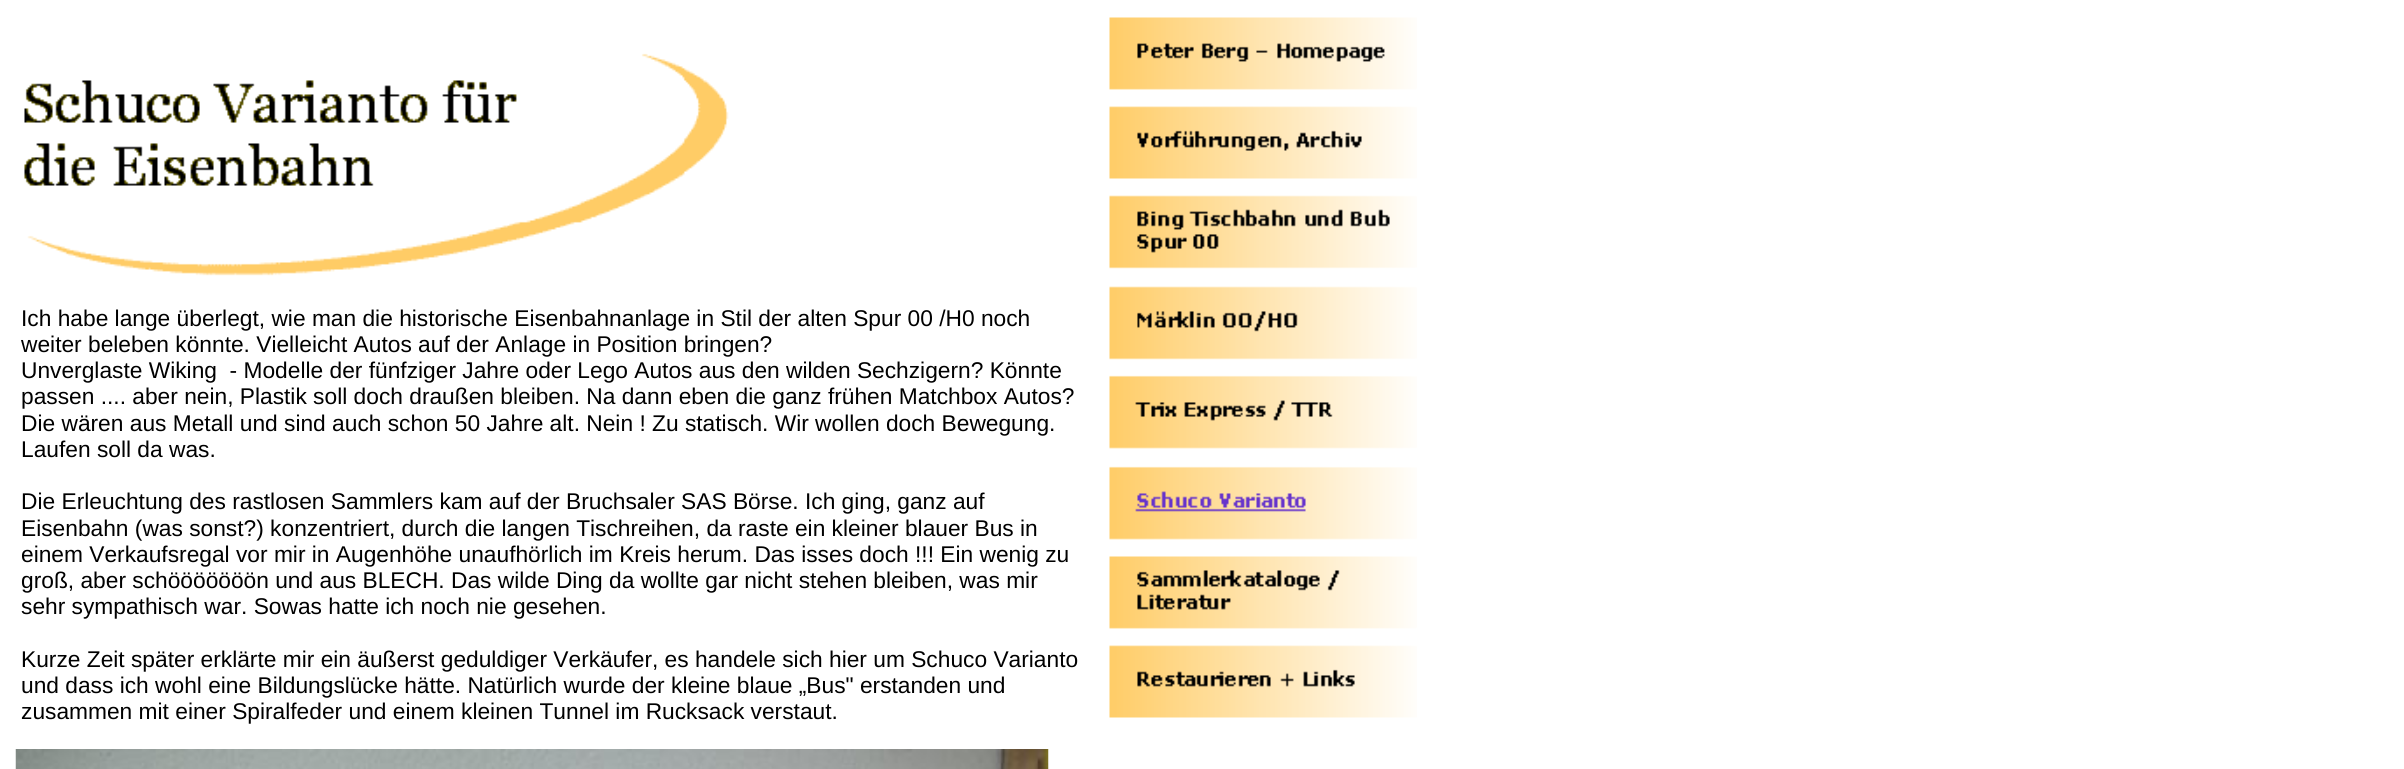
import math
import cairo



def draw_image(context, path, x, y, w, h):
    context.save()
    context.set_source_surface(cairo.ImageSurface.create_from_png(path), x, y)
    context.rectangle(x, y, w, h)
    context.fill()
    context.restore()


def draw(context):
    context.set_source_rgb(1, 1, 1)
    context.paint()
    draw_image(context, "images/1.png", 24, 53, 705, 223)
    draw_image(context, "images/2.png", 1109, 17, 308, 701)
    draw_image(context, "images/3.png", 15, 749, 1034, 20)
    context.select_font_face("Liberation Sans")
    context.set_font_size(22.75)
    context.set_source_rgb(0, 0, 0)
    context.move_to(21, 326)
    context.show_text("Ich habe lange überlegt, wie man die historische Eisenbahnanlage in Stil der alten Spur 00 /H0 noch")
    context.move_to(21, 352)
    context.show_text("weiter beleben könnte. Vielleicht Autos auf der Anlage in Position bringen?")
    context.move_to(21, 378)
    context.show_text("Unverglaste Wiking  - Modelle der fünfziger Jahre oder Lego Autos aus den wilden Sechzigern? Könnte")
    context.move_to(21, 404)
    context.show_text("passen .... aber nein, Plastik soll doch draußen bleiben. Na dann eben die ganz frühen Matchbox Autos?")
    context.move_to(21, 431)
    context.show_text("Die wären aus Metall und sind auch schon 50 Jahre alt. Nein ! Zu statisch. Wir wollen doch Bewegung.")
    context.move_to(21, 457)
    context.show_text("Laufen soll da was.")
    context.move_to(21, 509)
    context.show_text("Die Erleuchtung des rastlosen Sammlers kam auf der Bruchsaler SAS Börse. Ich ging, ganz auf")
    context.move_to(21, 536)
    context.show_text("Eisenbahn (was sonst?) konzentriert, durch die langen Tischreihen, da raste ein kleiner blauer Bus in")
    context.move_to(21, 562)
    context.show_text("einem Verkaufsregal vor mir in Augenhöhe unaufhörlich im Kreis herum. Das isses doch !!! Ein wenig zu")
    context.move_to(21, 588)
    context.show_text("groß, aber schööööööön und aus BLECH. Das wilde Ding da wollte gar nicht stehen bleiben, was mir")
    context.move_to(21, 614)
    context.show_text("sehr sympathisch war. Sowas hatte ich noch nie gesehen.")
    context.move_to(21, 667)
    context.show_text("Kurze Zeit später erklärte mir ein äußerst geduldiger Verkäufer, es handele sich hier um Schuco Varianto")
    context.move_to(21, 693)
    context.show_text("und dass ich wohl eine Bildungslücke hätte. Natürlich wurde der kleine blaue „Bus\" erstanden und")
    context.move_to(21, 719)
    context.show_text("zusammen mit einer Spiralfeder und einem kleinen Tunnel im Rucksack verstaut.")


surface = cairo.ImageSurface(cairo.Format.RGB24, 2404, 769)
context = cairo.Context(surface)
options = cairo.FontOptions()
options.set_hint_metrics(cairo.HintMetrics.OFF)
options.set_hint_style(cairo.HintStyle.NONE)
context.set_font_options(options)
context.set_miter_limit(4)
draw(context)
surface.write_to_png("out.png")
